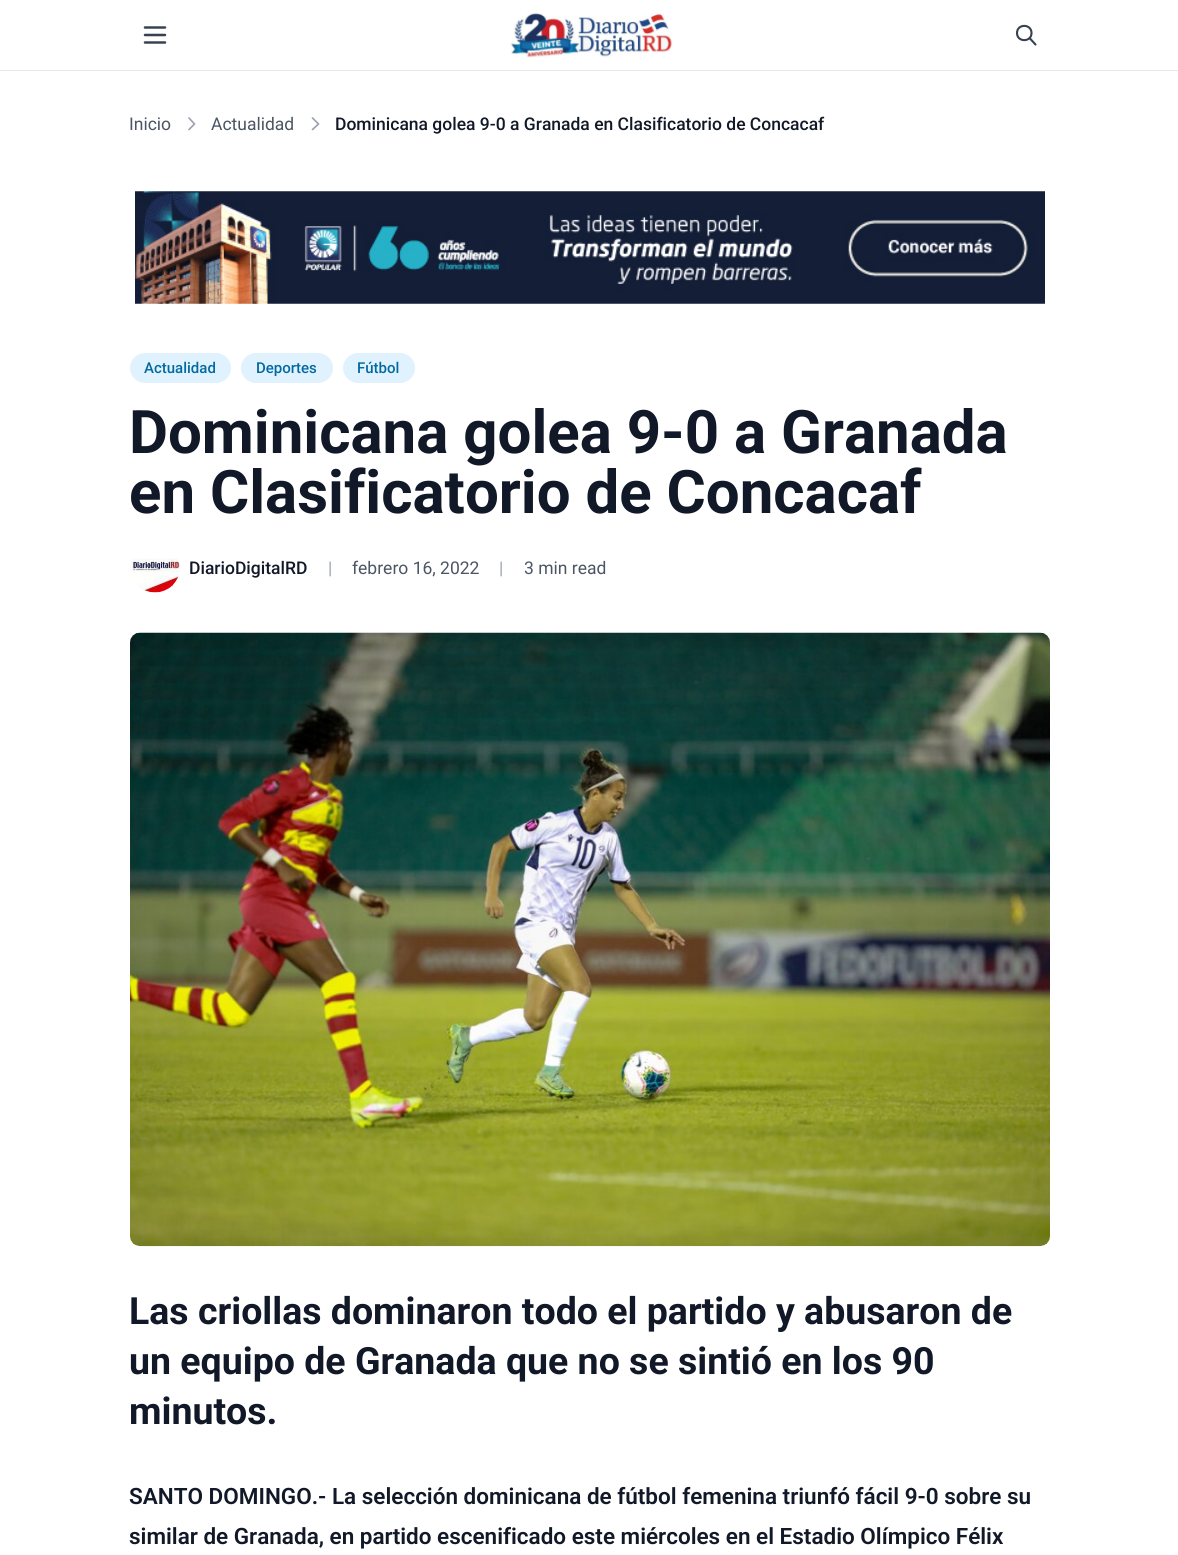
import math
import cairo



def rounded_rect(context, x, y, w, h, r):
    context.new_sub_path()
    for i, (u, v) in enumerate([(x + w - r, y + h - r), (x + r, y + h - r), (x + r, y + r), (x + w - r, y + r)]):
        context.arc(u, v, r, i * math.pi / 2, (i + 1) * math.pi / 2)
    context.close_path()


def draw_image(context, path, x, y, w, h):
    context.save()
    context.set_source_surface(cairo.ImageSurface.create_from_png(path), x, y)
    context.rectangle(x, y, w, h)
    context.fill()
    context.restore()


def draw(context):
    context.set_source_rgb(1, 1, 1)
    context.paint()
    context.set_source_rgb(229 / 255, 231 / 255, 235 / 255)
    context.rectangle(0, 70, 1178, 1)
    context.fill()
    context.new_path()
    context.move_to(145, 27.5)
    context.line_to(165, 27.5)
    context.move_to(145, 35)
    context.line_to(165, 35)
    context.move_to(145, 42.5)
    context.line_to(165, 42.5)
    context.set_source_rgb(55 / 255, 65 / 255, 81 / 255)
    context.set_line_width(2.5)
    context.set_line_cap(cairo.LineCap.ROUND)
    context.set_line_join(cairo.LineJoin.ROUND)
    context.stroke()
    draw_image(context, "images/1.png", 510, 13, 163, 45)
    context.new_path()
    context.move_to(1035.5, 44.5)
    context.line_to(1029.5, 38)
    context.move_to(1031.5, 33)
    context.curve_to(1031.5, 42.5, 1017, 42.5, 1017, 33)
    context.curve_to(1017, 23.5, 1031.5, 23.5, 1031.5, 33)
    context.close_path()
    context.set_line_width(2.1)
    context.stroke()
    context.new_path()
    context.move_to(189, 118)
    context.line_to(194.5, 124)
    context.line_to(189, 129.5)
    context.set_source_rgb(156 / 255, 163 / 255, 175 / 255)
    context.set_line_width(1.7)
    context.stroke()
    context.new_path()
    context.move_to(312.5, 118)
    context.line_to(318.5, 124)
    context.line_to(312.5, 129.5)
    context.stroke()
    draw_image(context, "images/2.png", 135, 191, 910, 113)
    context.set_source_rgb(224 / 255, 242 / 255, 254 / 255)
    rounded_rect(context, 130, 353, 101, 30, 15)
    context.fill()
    rounded_rect(context, 241, 353, 92, 30, 15)
    context.fill()
    rounded_rect(context, 343, 353, 72, 30, 15)
    context.fill()
    draw_image(context, "images/3.png", 130, 558, 50, 35)
    draw_image(context, "images/4.png", 130, 632, 920, 615)
    context.select_font_face("Roboto")
    context.set_font_size(17.5)
    context.set_source_rgb(75 / 255, 85 / 255, 99 / 255)
    context.move_to(129, 130)
    context.show_text("Inicio")
    context.move_to(211, 130)
    context.show_text("Actualidad")
    context.select_font_face("Roboto Medium")
    context.set_source_rgb(17 / 255, 24 / 255, 39 / 255)
    context.move_to(335, 130)
    context.show_text("Dominicana golea 9-0 a Granada en Clasificatorio de Concacaf")
    context.set_font_size(15)
    context.set_source_rgb(3 / 255, 105 / 255, 161 / 255)
    context.move_to(144, 373)
    context.show_text("Actualidad")
    context.move_to(256, 373)
    context.show_text("Deportes")
    context.move_to(357, 373)
    context.show_text("Fútbol")
    context.select_font_face("Roboto", cairo.FontSlant.NORMAL, cairo.FontWeight.BOLD)
    context.set_font_size(60)
    context.set_source_rgb(17 / 255, 24 / 255, 39 / 255)
    context.move_to(129, 453)
    context.show_text("Dominicana golea 9-0 a Granada")
    context.move_to(129, 513)
    context.show_text("en Clasificatorio de Concacaf")
    context.select_font_face("Roboto Medium")
    context.set_font_size(17.5)
    context.move_to(189, 574)
    context.show_text("DiarioDigitalRD")
    context.select_font_face("Roboto")
    context.set_source_rgb(156 / 255, 163 / 255, 175 / 255)
    context.move_to(328, 574)
    context.show_text("|")
    context.set_source_rgb(75 / 255, 85 / 255, 99 / 255)
    context.move_to(352, 574)
    context.show_text("febrero 16, 2022")
    context.set_source_rgb(156 / 255, 163 / 255, 175 / 255)
    context.move_to(499, 574)
    context.show_text("|")
    context.set_source_rgb(75 / 255, 85 / 255, 99 / 255)
    context.move_to(524, 574)
    context.show_text("3 min read")
    context.select_font_face("Roboto", cairo.FontSlant.NORMAL, cairo.FontWeight.BOLD)
    context.set_font_size(37.5)
    context.set_source_rgb(17 / 255, 24 / 255, 39 / 255)
    context.move_to(129, 1324)
    context.show_text("Las criollas dominaron todo el partido y abusaron de")
    context.move_to(129, 1374)
    context.show_text("un equipo de Granada que no se sintió en los 90")
    context.move_to(129, 1424)
    context.show_text("minutos.")
    context.select_font_face("Roboto SemiBold")
    context.set_font_size(22.5)
    context.move_to(129, 1504)
    context.show_text("SANTO DOMINGO.- La selección dominicana de fútbol femenina triunfó fácil 9-0 sobre su")
    context.move_to(129, 1544)
    context.show_text("similar de Granada, en partido escenificado este miércoles en el Estadio Olímpico Félix")


surface = cairo.ImageSurface(cairo.Format.RGB24, 1178, 1555)
context = cairo.Context(surface)
options = cairo.FontOptions()
options.set_hint_metrics(cairo.HintMetrics.OFF)
options.set_hint_style(cairo.HintStyle.NONE)
context.set_font_options(options)
context.set_miter_limit(4)
draw(context)
surface.write_to_png("out.png")
